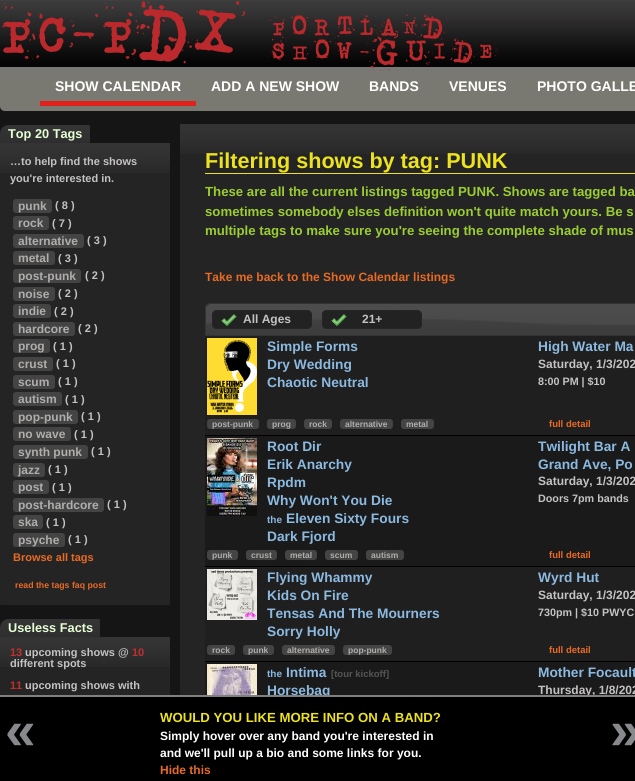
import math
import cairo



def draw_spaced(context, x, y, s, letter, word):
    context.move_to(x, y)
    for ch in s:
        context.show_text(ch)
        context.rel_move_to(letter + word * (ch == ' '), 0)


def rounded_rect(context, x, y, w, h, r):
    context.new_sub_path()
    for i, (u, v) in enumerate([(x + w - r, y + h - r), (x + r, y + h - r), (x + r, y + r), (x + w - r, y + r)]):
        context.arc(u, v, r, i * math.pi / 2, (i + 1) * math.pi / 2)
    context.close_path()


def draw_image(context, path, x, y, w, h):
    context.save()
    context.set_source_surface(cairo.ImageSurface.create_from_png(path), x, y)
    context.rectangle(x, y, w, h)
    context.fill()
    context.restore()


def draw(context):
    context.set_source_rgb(21 / 255, 21 / 255, 21 / 255)
    context.paint()
    draw_image(context, "images/1.png", 0, 0, 635, 71)
    context.set_source_rgb(36 / 255, 36 / 255, 36 / 255)
    context.new_path()
    context.move_to(9, 125)
    context.line_to(88.5, 125)
    context.curve_to(89.5, 125, 90, 125.5, 90, 126.5)
    context.line_to(90, 143)
    context.line_to(0, 143)
    context.line_to(0, 134)
    context.curve_to(0, 129, 4, 125, 9, 125)
    context.close_path()
    context.fill()
    draw_image(context, "images/2.png", 0, 125, 90, 18)
    rounded_rect(context, 0, 143, 170, 462, 1)
    context.fill()
    draw_image(context, "images/3.png", 0, 143, 170, 30)
    context.set_source_rgb(68 / 255, 68 / 255, 68 / 255)
    rounded_rect(context, 13, 199, 39, 14, 3)
    context.fill()
    rounded_rect(context, 13, 216, 36, 14, 3)
    context.fill()
    rounded_rect(context, 13, 234, 71, 14, 3)
    context.fill()
    rounded_rect(context, 13, 251, 42, 14, 3)
    context.fill()
    rounded_rect(context, 13, 269, 68, 14, 3)
    context.fill()
    rounded_rect(context, 13, 287, 42, 14, 3)
    context.fill()
    rounded_rect(context, 13, 304, 38, 14, 3)
    context.fill()
    rounded_rect(context, 13, 322, 62, 14, 3)
    context.fill()
    rounded_rect(context, 13, 339, 37, 14, 3)
    context.fill()
    rounded_rect(context, 13, 357, 40, 14, 3)
    context.fill()
    rounded_rect(context, 13, 375, 42, 14, 3)
    context.fill()
    rounded_rect(context, 13, 392, 49, 14, 3)
    context.fill()
    rounded_rect(context, 13, 410, 65, 14, 3)
    context.fill()
    rounded_rect(context, 13, 427, 58, 14, 3)
    context.fill()
    rounded_rect(context, 13, 445, 75, 14, 3)
    context.fill()
    rounded_rect(context, 13, 463, 32, 14, 3)
    context.fill()
    rounded_rect(context, 13, 480, 36, 14, 3)
    context.fill()
    rounded_rect(context, 13, 498, 91, 14, 3)
    context.fill()
    rounded_rect(context, 13, 515, 30, 14, 3)
    context.fill()
    rounded_rect(context, 13, 533, 52, 14, 3)
    context.fill()
    context.set_source_rgb(36 / 255, 36 / 255, 36 / 255)
    context.new_path()
    context.move_to(9, 619)
    context.line_to(98.5, 619)
    context.curve_to(99.5, 619, 100, 619.5, 100, 620.5)
    context.line_to(100, 637)
    context.line_to(0, 637)
    context.line_to(0, 628)
    context.curve_to(0, 623, 4, 619, 9, 619)
    context.close_path()
    context.fill()
    draw_image(context, "images/4.png", 0, 619, 100, 18)
    rounded_rect(context, 0, 637, 170, 119, 1)
    context.fill()
    draw_image(context, "images/3.png", 0, 637, 170, 30)
    context.rectangle(180, 154, 455, 541)
    context.fill()
    draw_image(context, "images/5.png", 180, 124, 455, 30)
    context.set_source_rgb(237 / 255, 226 / 255, 32 / 255)
    context.rectangle(205, 173, 430, 1)
    context.fill()
    draw_image(context, "images/6.png", 205, 303, 430, 32)
    context.new_path()
    context.move_to(211, 303.5)
    context.line_to(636, 303.5)
    context.curve_to(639, 303.5, 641.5, 306, 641.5, 309)
    context.line_to(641.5, 335.5)
    context.line_to(205.5, 335.5)
    context.line_to(205.5, 309)
    context.curve_to(205.5, 306, 208, 303.5, 211, 303.5)
    context.close_path()
    context.set_source_rgb(51 / 255, 51 / 255, 51 / 255)
    context.set_line_width(1)
    context.stroke()
    context.set_source_rgb(34 / 255, 34 / 255, 34 / 255)
    rounded_rect(context, 212, 310, 100, 19, 5)
    context.fill()
    draw_image(context, "images/7.png", 221, 314, 16, 12)
    rounded_rect(context, 212.5, 310.5, 99, 18, 4.5)
    context.set_source_rgb(37 / 255, 37 / 255, 37 / 255)
    context.stroke()
    context.set_source_rgb(34 / 255, 34 / 255, 34 / 255)
    rounded_rect(context, 322, 310, 100, 19, 5)
    context.fill()
    draw_image(context, "images/7.png", 331, 314, 16, 12)
    rounded_rect(context, 322.5, 310.5, 99, 18, 4.5)
    context.set_source_rgb(37 / 255, 37 / 255, 37 / 255)
    context.stroke()
    context.set_source_rgb(31 / 255, 31 / 255, 31 / 255)
    context.rectangle(205, 336, 430, 99)
    context.fill()
    context.set_source_rgb(0, 0, 0)
    context.rectangle(205, 435, 430, 1)
    context.fill()
    draw_image(context, "images/8.png", 207, 338, 50, 77)
    context.set_source_rgb(68 / 255, 68 / 255, 68 / 255)
    rounded_rect(context, 207, 419, 52, 10, 3)
    context.fill()
    rounded_rect(context, 267, 419, 29, 10, 3)
    context.fill()
    rounded_rect(context, 304, 419, 28, 10, 3)
    context.fill()
    rounded_rect(context, 340, 419, 53, 10, 3)
    context.fill()
    rounded_rect(context, 401, 419, 33, 10, 3)
    context.fill()
    context.set_source_rgb(26 / 255, 26 / 255, 26 / 255)
    context.rectangle(205, 436, 430, 130)
    context.fill()
    context.set_source_rgb(0, 0, 0)
    context.rectangle(205, 566, 430, 1)
    context.fill()
    draw_image(context, "images/9.png", 207, 438, 50, 78)
    context.set_source_rgb(68 / 255, 68 / 255, 68 / 255)
    rounded_rect(context, 207, 550, 31, 10, 3)
    context.fill()
    rounded_rect(context, 246, 550, 31, 10, 3)
    context.fill()
    rounded_rect(context, 285, 550, 32, 10, 3)
    context.fill()
    rounded_rect(context, 325, 550, 33, 10, 3)
    context.fill()
    rounded_rect(context, 366, 550, 38, 10, 3)
    context.fill()
    context.set_source_rgb(31 / 255, 31 / 255, 31 / 255)
    context.rectangle(205, 567, 430, 94)
    context.fill()
    context.set_source_rgb(0, 0, 0)
    context.rectangle(205, 661, 430, 1)
    context.fill()
    draw_image(context, "images/10.png", 207, 569, 50, 51)
    context.set_source_rgb(68 / 255, 68 / 255, 68 / 255)
    rounded_rect(context, 207, 645, 28, 10, 3)
    context.fill()
    rounded_rect(context, 243, 645, 31, 10, 3)
    context.fill()
    rounded_rect(context, 282, 645, 53, 10, 3)
    context.fill()
    rounded_rect(context, 343, 645, 49, 10, 3)
    context.fill()
    context.set_source_rgb(26 / 255, 26 / 255, 26 / 255)
    context.rectangle(205, 662, 430, 33)
    context.fill()
    draw_image(context, "images/11.png", 207, 664, 50, 31)
    context.select_font_face("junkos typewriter")
    context.set_font_size(60)
    context.set_source_rgb(187 / 255, 41 / 255, 45 / 255)
    draw_spaced(context, 0, 52, "P", -12, 0)
    draw_spaced(context, 37, 52, "C", -12, 0)
    draw_spaced(context, 72, 52, "-", -12, 0)
    draw_spaced(context, 101, 52, "P", -12, 0)
    draw_spaced(context, 137, 52, "D", -12, 0)
    draw_spaced(context, 192, 52, "X", -12, 0)
    context.set_font_size(24)
    context.move_to(272, 35)
    context.show_text("P O R T L A N D")
    context.move_to(272, 59)
    context.show_text("S H O W - G U I D E")
    context.set_source_rgb(121 / 255, 121 / 255, 113 / 255)
    context.new_path()
    context.move_to(0, 71)
    context.line_to(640, 71)
    context.line_to(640, 106)
    context.curve_to(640, 109, 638, 111, 635, 111)
    context.line_to(5, 111)
    context.curve_to(2, 111, 0, 109, 0, 106)
    context.close_path()
    context.fill()
    context.select_font_face("Liberation Sans", cairo.FontSlant.NORMAL, cairo.FontWeight.BOLD)
    context.set_font_size(14)
    context.set_source_rgb(1, 1, 1)
    context.move_to(55, 91)
    context.show_text("SHOW CALENDAR")
    context.move_to(211, 91)
    context.show_text("ADD A NEW SHOW")
    context.move_to(369, 91)
    context.show_text("BANDS")
    context.move_to(449, 91)
    context.show_text("VENUES")
    context.move_to(537, 91)
    context.show_text("PHOTO GALLE")
    context.set_source_rgb(224 / 255, 32 / 255, 27 / 255)
    context.rectangle(40, 101, 156, 5)
    context.fill()
    context.set_font_size(12.75)
    context.set_source_rgb(230 / 255, 1, 212 / 255)
    context.move_to(8, 138)
    context.show_text("Top 20 Tags")
    context.set_font_size(11)
    context.set_source_rgb(196 / 255, 194 / 255, 194 / 255)
    context.move_to(10, 165)
    context.show_text("…to help find the shows")
    context.move_to(10, 182)
    context.show_text("you're interested in.")
    context.set_font_size(12)
    context.set_source_rgb(176 / 255, 174 / 255, 172 / 255)
    context.move_to(18, 210)
    context.show_text("punk")
    context.set_font_size(11)
    context.set_source_rgb(196 / 255, 194 / 255, 194 / 255)
    context.move_to(55, 209)
    context.show_text("( 8 )")
    context.set_font_size(12)
    context.set_source_rgb(176 / 255, 174 / 255, 172 / 255)
    context.move_to(18, 227)
    context.show_text("rock")
    context.set_font_size(11)
    context.set_source_rgb(196 / 255, 194 / 255, 194 / 255)
    context.move_to(52, 227)
    context.show_text("( 7 )")
    context.set_font_size(12)
    context.set_source_rgb(176 / 255, 174 / 255, 172 / 255)
    context.move_to(18, 245)
    context.show_text("alternative")
    context.set_font_size(11)
    context.set_source_rgb(196 / 255, 194 / 255, 194 / 255)
    context.move_to(87, 244)
    context.show_text("( 3 )")
    context.set_font_size(12)
    context.set_source_rgb(176 / 255, 174 / 255, 172 / 255)
    context.move_to(18, 262)
    context.show_text("metal")
    context.set_font_size(11)
    context.set_source_rgb(196 / 255, 194 / 255, 194 / 255)
    context.move_to(58, 262)
    context.show_text("( 3 )")
    context.set_font_size(12)
    context.set_source_rgb(176 / 255, 174 / 255, 172 / 255)
    context.move_to(18, 280)
    context.show_text("post-punk")
    context.set_font_size(11)
    context.set_source_rgb(196 / 255, 194 / 255, 194 / 255)
    context.move_to(85, 279)
    context.show_text("( 2 )")
    context.set_font_size(12)
    context.set_source_rgb(176 / 255, 174 / 255, 172 / 255)
    context.move_to(18, 298)
    context.show_text("noise")
    context.set_font_size(11)
    context.set_source_rgb(196 / 255, 194 / 255, 194 / 255)
    context.move_to(58, 297)
    context.show_text("( 2 )")
    context.set_font_size(12)
    context.set_source_rgb(176 / 255, 174 / 255, 172 / 255)
    context.move_to(18, 315)
    context.show_text("indie")
    context.set_font_size(11)
    context.set_source_rgb(196 / 255, 194 / 255, 194 / 255)
    context.move_to(54, 315)
    context.show_text("( 2 )")
    context.set_font_size(12)
    context.set_source_rgb(176 / 255, 174 / 255, 172 / 255)
    context.move_to(18, 333)
    context.show_text("hardcore")
    context.set_font_size(11)
    context.set_source_rgb(196 / 255, 194 / 255, 194 / 255)
    context.move_to(78, 332)
    context.show_text("( 2 )")
    context.set_font_size(12)
    context.set_source_rgb(176 / 255, 174 / 255, 172 / 255)
    context.move_to(18, 350)
    context.show_text("prog")
    context.set_font_size(11)
    context.set_source_rgb(196 / 255, 194 / 255, 194 / 255)
    context.move_to(53, 350)
    context.show_text("( 1 )")
    context.set_font_size(12)
    context.set_source_rgb(176 / 255, 174 / 255, 172 / 255)
    context.move_to(18, 368)
    context.show_text("crust")
    context.set_font_size(11)
    context.set_source_rgb(196 / 255, 194 / 255, 194 / 255)
    context.move_to(56, 367)
    context.show_text("( 1 )")
    context.set_font_size(12)
    context.set_source_rgb(176 / 255, 174 / 255, 172 / 255)
    context.move_to(18, 386)
    context.show_text("scum")
    context.set_font_size(11)
    context.set_source_rgb(196 / 255, 194 / 255, 194 / 255)
    context.move_to(58, 385)
    context.show_text("( 1 )")
    context.set_font_size(12)
    context.set_source_rgb(176 / 255, 174 / 255, 172 / 255)
    context.move_to(18, 403)
    context.show_text("autism")
    context.set_font_size(11)
    context.set_source_rgb(196 / 255, 194 / 255, 194 / 255)
    context.move_to(65, 403)
    context.show_text("( 1 )")
    context.set_font_size(12)
    context.set_source_rgb(176 / 255, 174 / 255, 172 / 255)
    context.move_to(18, 421)
    context.show_text("pop-punk")
    context.set_font_size(11)
    context.set_source_rgb(196 / 255, 194 / 255, 194 / 255)
    context.move_to(81, 420)
    context.show_text("( 1 )")
    context.set_font_size(12)
    context.set_source_rgb(176 / 255, 174 / 255, 172 / 255)
    context.move_to(18, 438)
    context.show_text("no wave")
    context.set_font_size(11)
    context.set_source_rgb(196 / 255, 194 / 255, 194 / 255)
    context.move_to(74, 438)
    context.show_text("( 1 )")
    context.set_font_size(12)
    context.set_source_rgb(176 / 255, 174 / 255, 172 / 255)
    context.move_to(18, 456)
    context.show_text("synth punk")
    context.set_font_size(11)
    context.set_source_rgb(196 / 255, 194 / 255, 194 / 255)
    context.move_to(91, 455)
    context.show_text("( 1 )")
    context.set_font_size(12)
    context.set_source_rgb(176 / 255, 174 / 255, 172 / 255)
    context.move_to(18, 474)
    context.show_text("jazz")
    context.set_font_size(11)
    context.set_source_rgb(196 / 255, 194 / 255, 194 / 255)
    context.move_to(48, 473)
    context.show_text("( 1 )")
    context.set_font_size(12)
    context.set_source_rgb(176 / 255, 174 / 255, 172 / 255)
    context.move_to(18, 491)
    context.show_text("post")
    context.set_font_size(11)
    context.set_source_rgb(196 / 255, 194 / 255, 194 / 255)
    context.move_to(52, 491)
    context.show_text("( 1 )")
    context.set_font_size(12)
    context.set_source_rgb(176 / 255, 174 / 255, 172 / 255)
    context.move_to(18, 509)
    context.show_text("post-hardcore")
    context.set_font_size(11)
    context.set_source_rgb(196 / 255, 194 / 255, 194 / 255)
    context.move_to(107, 508)
    context.show_text("( 1 )")
    context.set_font_size(12)
    context.set_source_rgb(176 / 255, 174 / 255, 172 / 255)
    context.move_to(18, 526)
    context.show_text("ska")
    context.set_font_size(11)
    context.set_source_rgb(196 / 255, 194 / 255, 194 / 255)
    context.move_to(46, 526)
    context.show_text("( 1 )")
    context.set_font_size(12)
    context.set_source_rgb(176 / 255, 174 / 255, 172 / 255)
    context.move_to(18, 544)
    context.show_text("psyche")
    context.set_font_size(11)
    context.set_source_rgb(196 / 255, 194 / 255, 194 / 255)
    context.move_to(68, 543)
    context.show_text("( 1 )")
    context.set_source_rgb(232 / 255, 106 / 255, 36 / 255)
    context.move_to(13, 561)
    context.show_text("Browse all tags")
    context.set_font_size(8.75)
    context.move_to(15, 588)
    context.show_text("read the tags faq post")
    context.set_font_size(12.75)
    context.set_source_rgb(230 / 255, 1, 212 / 255)
    context.move_to(8, 632)
    context.show_text("Useless Facts")
    context.set_font_size(11)
    context.set_source_rgb(194 / 255, 48 / 255, 44 / 255)
    context.move_to(10, 656)
    context.show_text("13")
    context.set_source_rgb(196 / 255, 194 / 255, 194 / 255)
    context.move_to(25, 656)
    context.show_text("upcoming shows @")
    context.set_source_rgb(194 / 255, 48 / 255, 44 / 255)
    context.move_to(132, 656)
    context.show_text("10")
    context.set_source_rgb(196 / 255, 194 / 255, 194 / 255)
    context.move_to(10, 667)
    context.show_text("different spots")
    context.set_source_rgb(194 / 255, 48 / 255, 44 / 255)
    context.move_to(10, 689)
    context.show_text("11")
    context.set_source_rgb(196 / 255, 194 / 255, 194 / 255)
    context.move_to(25, 689)
    context.show_text("upcoming shows with")
    context.set_font_size(21.6)
    context.set_source_rgb(237 / 255, 226 / 255, 32 / 255)
    context.move_to(205, 168)
    context.show_text("Filtering shows by tag: PUNK")
    context.set_font_size(13.2)
    context.set_source_rgb(154 / 255, 205 / 255, 50 / 255)
    context.move_to(205, 196)
    context.show_text("These are all the current listings tagged PUNK. Shows are tagged ba")
    context.move_to(205, 216)
    context.show_text("sometimes somebody elses definition won't quite match yours. Be s")
    context.move_to(205, 235)
    context.show_text("multiple tags to make sure you're seeing the complete shade of mus")
    context.set_font_size(12)
    context.set_source_rgb(232 / 255, 106 / 255, 36 / 255)
    context.move_to(205, 281)
    context.show_text("Take me back to the Show Calendar listings")
    context.set_source_rgb(196 / 255, 194 / 255, 194 / 255)
    context.move_to(243, 323)
    context.show_text("All Ages")
    context.move_to(362, 323)
    context.show_text("21+")
    context.set_font_size(13.75)
    context.set_source_rgb(139 / 255, 185 / 255, 224 / 255)
    context.move_to(267, 351)
    context.show_text("Simple Forms")
    context.move_to(267, 369)
    context.show_text("Dry Wedding")
    context.move_to(267, 387)
    context.show_text("Chaotic Neutral")
    context.move_to(538, 351)
    context.show_text("High Water Ma")
    context.set_font_size(12)
    context.set_source_rgb(196 / 255, 194 / 255, 194 / 255)
    context.move_to(538, 368)
    context.show_text("Saturday, 1/3/202")
    context.set_font_size(10.75)
    context.move_to(538, 385)
    context.show_text("8:00 PM | $10")
    context.set_font_size(8.5)
    context.set_source_rgb(176 / 255, 174 / 255, 172 / 255)
    context.move_to(212, 427)
    context.show_text("post-punk")
    context.move_to(272, 427)
    context.show_text("prog")
    context.move_to(309, 427)
    context.show_text("rock")
    context.move_to(345, 427)
    context.show_text("alternative")
    context.move_to(406, 427)
    context.show_text("metal")
    context.set_font_size(9.5)
    context.set_source_rgb(232 / 255, 106 / 255, 36 / 255)
    context.move_to(549, 427)
    context.show_text("full detail")
    context.set_font_size(13.75)
    context.set_source_rgb(139 / 255, 185 / 255, 224 / 255)
    context.move_to(267, 451)
    context.show_text("Root Dir")
    context.move_to(267, 469)
    context.show_text("Erik Anarchy")
    context.move_to(267, 487)
    context.show_text("Rpdm")
    context.move_to(267, 505)
    context.show_text("Why Won't You Die")
    context.set_font_size(10)
    context.move_to(267, 523)
    context.show_text("the")
    context.set_font_size(13.75)
    context.move_to(286, 523)
    context.show_text("Eleven Sixty Fours")
    context.move_to(267, 541)
    context.show_text("Dark Fjord")
    context.move_to(538, 451)
    context.show_text("Twilight Bar A")
    context.move_to(538, 469)
    context.show_text("Grand Ave, Po")
    context.set_font_size(12)
    context.set_source_rgb(196 / 255, 194 / 255, 194 / 255)
    context.move_to(538, 485)
    context.show_text("Saturday, 1/3/202")
    context.set_font_size(10.75)
    context.move_to(538, 502)
    context.show_text("Doors 7pm bands")
    context.set_font_size(8.5)
    context.set_source_rgb(176 / 255, 174 / 255, 172 / 255)
    context.move_to(212, 558)
    context.show_text("punk")
    context.move_to(251, 558)
    context.show_text("crust")
    context.move_to(290, 558)
    context.show_text("metal")
    context.move_to(330, 558)
    context.show_text("scum")
    context.move_to(371, 558)
    context.show_text("autism")
    context.set_font_size(9.5)
    context.set_source_rgb(232 / 255, 106 / 255, 36 / 255)
    context.move_to(549, 558)
    context.show_text("full detail")
    context.set_font_size(13.75)
    context.set_source_rgb(139 / 255, 185 / 255, 224 / 255)
    context.move_to(267, 582)
    context.show_text("Flying Whammy")
    context.move_to(267, 600)
    context.show_text("Kids On Fire")
    context.move_to(267, 618)
    context.show_text("Tensas And The Mourners")
    context.move_to(267, 636)
    context.show_text("Sorry Holly")
    context.move_to(538, 582)
    context.show_text("Wyrd Hut")
    context.set_font_size(12)
    context.set_source_rgb(196 / 255, 194 / 255, 194 / 255)
    context.move_to(538, 599)
    context.show_text("Saturday, 1/3/202")
    context.set_font_size(10.75)
    context.move_to(538, 616)
    context.show_text("730pm | $10 PWYC")
    context.set_font_size(8.5)
    context.set_source_rgb(176 / 255, 174 / 255, 172 / 255)
    context.move_to(212, 653)
    context.show_text("rock")
    context.move_to(248, 653)
    context.show_text("punk")
    context.move_to(287, 653)
    context.show_text("alternative")
    context.move_to(348, 653)
    context.show_text("pop-punk")
    context.set_font_size(9.5)
    context.set_source_rgb(232 / 255, 106 / 255, 36 / 255)
    context.move_to(549, 653)
    context.show_text("full detail")
    context.set_font_size(10)
    context.set_source_rgb(139 / 255, 185 / 255, 224 / 255)
    context.move_to(267, 677)
    context.show_text("the")
    context.set_font_size(13.75)
    context.move_to(286, 677)
    context.show_text("Intima")
    context.set_font_size(9.5)
    context.set_source_rgb(85 / 255, 85 / 255, 85 / 255)
    context.move_to(331, 677)
    context.show_text("[tour kickoff]")
    context.set_font_size(13.75)
    context.set_source_rgb(139 / 255, 185 / 255, 224 / 255)
    context.move_to(267, 695)
    context.show_text("Horsebag")
    context.move_to(538, 677)
    context.show_text("Mother Focault")
    context.set_font_size(12)
    context.set_source_rgb(196 / 255, 194 / 255, 194 / 255)
    context.move_to(538, 694)
    context.show_text("Thursday, 1/8/202")
    context.set_source_rgb(0, 0, 0)
    context.rectangle(0, 697, 635, 84)
    context.fill()
    context.set_source_rgb(128 / 255, 128 / 255, 128 / 255)
    context.rectangle(0, 695, 635, 2)
    context.fill()
    context.set_font_size(55)
    context.set_source_rgb(136 / 255, 137 / 255, 140 / 255)
    context.move_to(5, 749)
    context.show_text("«")
    context.set_font_size(13.2)
    context.set_source_rgb(237 / 255, 226 / 255, 32 / 255)
    context.move_to(160, 722)
    context.show_text("WOULD YOU LIKE MORE INFO ON A BAND?")
    context.set_font_size(12)
    context.set_source_rgb(1, 1, 1)
    context.move_to(160, 740)
    context.show_text("Simply hover over any band you're interested in")
    context.move_to(160, 757)
    context.show_text("and we'll pull up a bio and some links for you.")
    context.set_source_rgb(232 / 255, 106 / 255, 36 / 255)
    context.move_to(160, 774)
    context.show_text("Hide this")
    context.set_font_size(55)
    context.set_source_rgb(136 / 255, 137 / 255, 140 / 255)
    context.move_to(610, 749)
    context.show_text("»")


surface = cairo.ImageSurface(cairo.Format.RGB24, 635, 781)
context = cairo.Context(surface)
options = cairo.FontOptions()
options.set_hint_metrics(cairo.HintMetrics.OFF)
options.set_hint_style(cairo.HintStyle.NONE)
context.set_font_options(options)
context.set_miter_limit(4)
draw(context)
surface.write_to_png("out.png")
